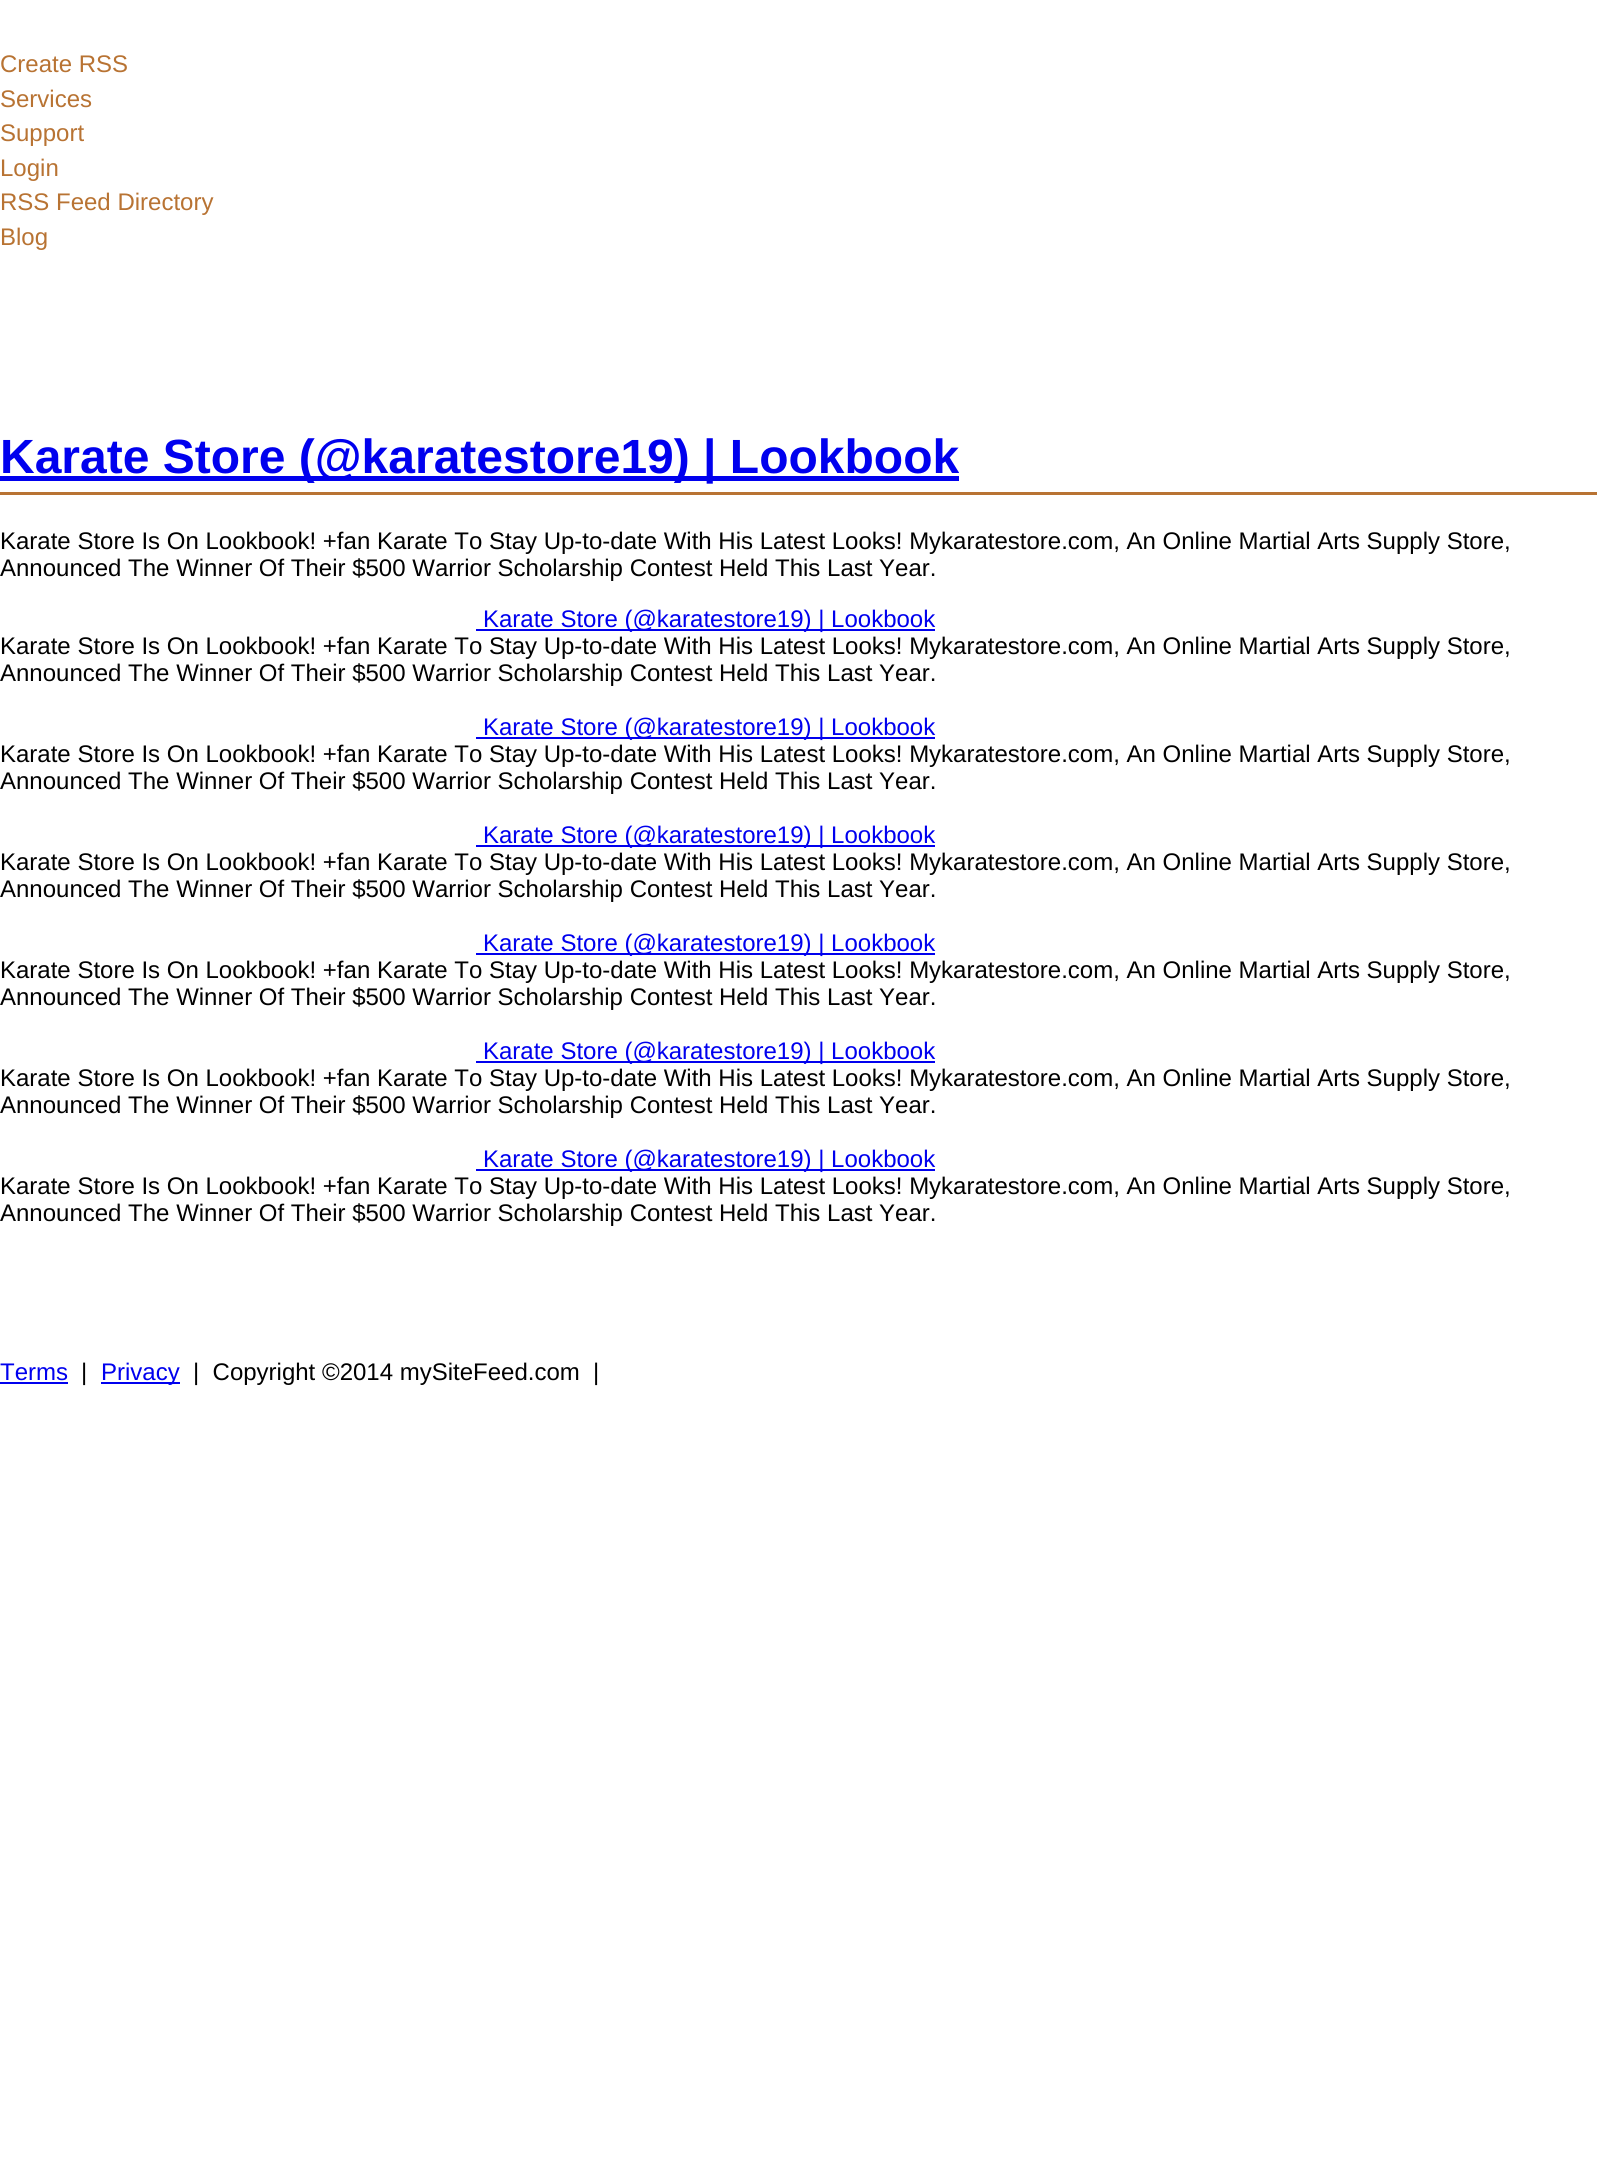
import math
import cairo



def draw(context):
    context.set_source_rgb(1, 1, 1)
    context.paint()
    context.set_source_rgb(184 / 255, 115 / 255, 51 / 255)
    context.rectangle(0, 492, 1597, 3)
    context.fill()
    context.set_source_rgb(0, 0, 238 / 255)
    context.rectangle(0, 476, 959, 5)
    context.fill()
    context.rectangle(476, 629, 459, 2)
    context.fill()
    context.rectangle(476, 737, 459, 2)
    context.fill()
    context.rectangle(476, 845, 459, 2)
    context.fill()
    context.rectangle(476, 953, 459, 2)
    context.fill()
    context.rectangle(476, 1061, 459, 2)
    context.fill()
    context.rectangle(476, 1169, 459, 2)
    context.fill()
    context.rectangle(0, 1382, 68, 2)
    context.fill()
    context.rectangle(101, 1382, 79, 2)
    context.fill()
    context.select_font_face("Liberation Sans")
    context.set_font_size(24)
    context.set_source_rgb(184 / 255, 115 / 255, 51 / 255)
    context.move_to(0, 72)
    context.show_text("Create RSS")
    context.move_to(0, 107)
    context.show_text("Services")
    context.move_to(0, 141)
    context.show_text("Support")
    context.move_to(0, 176)
    context.show_text("Login")
    context.move_to(0, 210)
    context.show_text("RSS Feed Directory")
    context.move_to(0, 245)
    context.show_text("Blog")
    context.select_font_face("Liberation Sans", cairo.FontSlant.NORMAL, cairo.FontWeight.BOLD)
    context.set_font_size(48)
    context.set_source_rgb(0, 0, 238 / 255)
    context.move_to(0, 473)
    context.show_text("Karate Store (@karatestore19) | Lookbook")
    context.select_font_face("Liberation Sans")
    context.set_font_size(24)
    context.set_source_rgb(0, 0, 0)
    context.move_to(0, 549)
    context.show_text("Karate Store Is On Lookbook! +fan Karate To Stay Up-to-date With His Latest Looks! Mykaratestore.com, An Online Martial Arts Supply Store,")
    context.move_to(0, 576)
    context.show_text("Announced The Winner Of Their $500 Warrior Scholarship Contest Held This Last Year.")
    context.set_source_rgb(0, 0, 238 / 255)
    context.move_to(483, 627)
    context.show_text("Karate Store (@karatestore19) | Lookbook")
    context.set_source_rgb(0, 0, 0)
    context.move_to(0, 654)
    context.show_text("Karate Store Is On Lookbook! +fan Karate To Stay Up-to-date With His Latest Looks! Mykaratestore.com, An Online Martial Arts Supply Store,")
    context.move_to(0, 681)
    context.show_text("Announced The Winner Of Their $500 Warrior Scholarship Contest Held This Last Year.")
    context.set_source_rgb(0, 0, 238 / 255)
    context.move_to(483, 735)
    context.show_text("Karate Store (@karatestore19) | Lookbook")
    context.set_source_rgb(0, 0, 0)
    context.move_to(0, 762)
    context.show_text("Karate Store Is On Lookbook! +fan Karate To Stay Up-to-date With His Latest Looks! Mykaratestore.com, An Online Martial Arts Supply Store,")
    context.move_to(0, 789)
    context.show_text("Announced The Winner Of Their $500 Warrior Scholarship Contest Held This Last Year.")
    context.set_source_rgb(0, 0, 238 / 255)
    context.move_to(483, 843)
    context.show_text("Karate Store (@karatestore19) | Lookbook")
    context.set_source_rgb(0, 0, 0)
    context.move_to(0, 870)
    context.show_text("Karate Store Is On Lookbook! +fan Karate To Stay Up-to-date With His Latest Looks! Mykaratestore.com, An Online Martial Arts Supply Store,")
    context.move_to(0, 897)
    context.show_text("Announced The Winner Of Their $500 Warrior Scholarship Contest Held This Last Year.")
    context.set_source_rgb(0, 0, 238 / 255)
    context.move_to(483, 951)
    context.show_text("Karate Store (@karatestore19) | Lookbook")
    context.set_source_rgb(0, 0, 0)
    context.move_to(0, 978)
    context.show_text("Karate Store Is On Lookbook! +fan Karate To Stay Up-to-date With His Latest Looks! Mykaratestore.com, An Online Martial Arts Supply Store,")
    context.move_to(0, 1005)
    context.show_text("Announced The Winner Of Their $500 Warrior Scholarship Contest Held This Last Year.")
    context.set_source_rgb(0, 0, 238 / 255)
    context.move_to(483, 1059)
    context.show_text("Karate Store (@karatestore19) | Lookbook")
    context.set_source_rgb(0, 0, 0)
    context.move_to(0, 1086)
    context.show_text("Karate Store Is On Lookbook! +fan Karate To Stay Up-to-date With His Latest Looks! Mykaratestore.com, An Online Martial Arts Supply Store,")
    context.move_to(0, 1113)
    context.show_text("Announced The Winner Of Their $500 Warrior Scholarship Contest Held This Last Year.")
    context.set_source_rgb(0, 0, 238 / 255)
    context.move_to(483, 1167)
    context.show_text("Karate Store (@karatestore19) | Lookbook")
    context.set_source_rgb(0, 0, 0)
    context.move_to(0, 1194)
    context.show_text("Karate Store Is On Lookbook! +fan Karate To Stay Up-to-date With His Latest Looks! Mykaratestore.com, An Online Martial Arts Supply Store,")
    context.move_to(0, 1221)
    context.show_text("Announced The Winner Of Their $500 Warrior Scholarship Contest Held This Last Year.")
    context.set_source_rgb(0, 0, 238 / 255)
    context.move_to(0, 1380)
    context.show_text("Terms")
    context.set_source_rgb(0, 0, 0)
    context.move_to(81, 1380)
    context.show_text("|")
    context.set_source_rgb(0, 0, 238 / 255)
    context.move_to(101, 1380)
    context.show_text("Privacy")
    context.set_source_rgb(0, 0, 0)
    context.move_to(193, 1380)
    context.show_text("|  Copyright ©2014 mySiteFeed.com  |")


surface = cairo.ImageSurface(cairo.Format.RGB24, 1597, 2167)
context = cairo.Context(surface)
options = cairo.FontOptions()
options.set_hint_metrics(cairo.HintMetrics.OFF)
options.set_hint_style(cairo.HintStyle.NONE)
context.set_font_options(options)
context.set_miter_limit(4)
draw(context)
surface.write_to_png("out.png")
